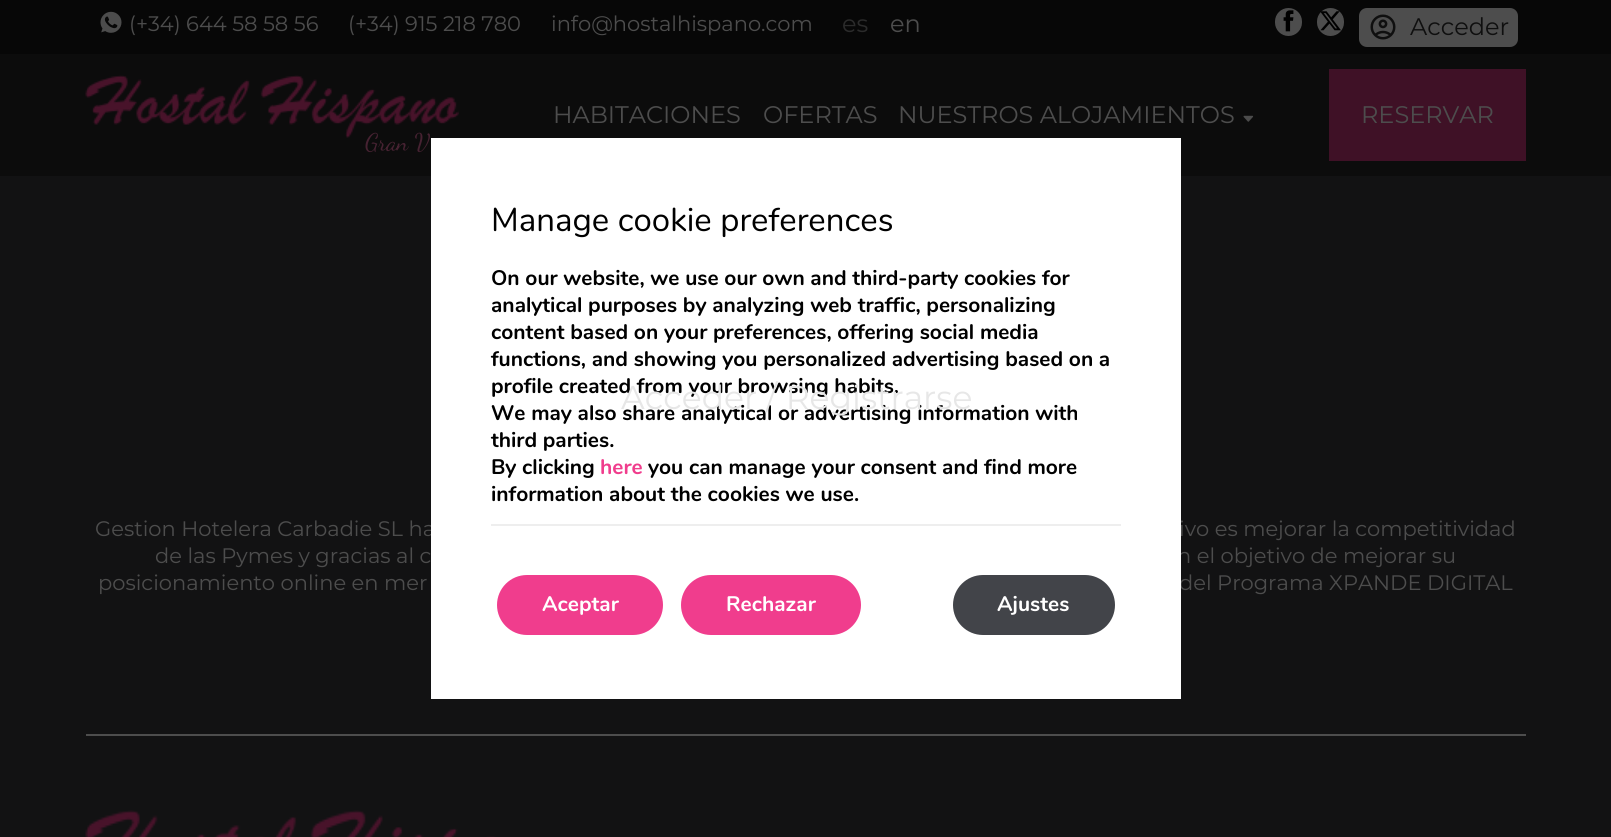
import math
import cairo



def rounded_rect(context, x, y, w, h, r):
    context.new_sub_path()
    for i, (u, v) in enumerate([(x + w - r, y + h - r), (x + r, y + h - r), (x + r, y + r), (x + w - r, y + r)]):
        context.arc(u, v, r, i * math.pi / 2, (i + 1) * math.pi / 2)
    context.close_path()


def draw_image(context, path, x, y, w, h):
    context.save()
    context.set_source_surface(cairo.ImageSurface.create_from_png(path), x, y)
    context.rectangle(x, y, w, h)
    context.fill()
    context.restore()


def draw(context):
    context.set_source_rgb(18 / 255, 18 / 255, 19 / 255)
    context.paint()
    context.set_source_rgb(12 / 255, 12 / 255, 12 / 255)
    context.rectangle(0, 54, 1611, 122)
    context.fill()
    context.set_source_rgb(7 / 255, 7 / 255, 7 / 255)
    context.rectangle(0, 0, 1611, 54)
    context.fill()
    draw_image(context, "images/1.png", 100, 11, 22, 22)
    context.set_source_rgb(77 / 255, 77 / 255, 77 / 255)
    rounded_rect(context, 1275, 8, 27, 28, 13.5)
    context.fill()
    draw_image(context, "images/2.png", 1283, 10, 11, 22)
    rounded_rect(context, 1317, 8, 27, 28, 13.5)
    context.fill()
    draw_image(context, "images/3.png", 1320, 11, 21, 20)
    rounded_rect(context, 1360, 9, 157, 37, 7)
    context.fill_preserve()
    context.stroke()
    draw_image(context, "images/4.png", 1370, 14, 26, 26)
    draw_image(context, "images/5.png", 1243, 115, 11, 7)
    context.set_source_rgb(63 / 255, 17 / 255, 38 / 255)
    context.rectangle(1329, 69, 197, 92)
    context.fill()
    draw_image(context, "images/6.png", 85, 75, 374, 63)
    context.set_source_rgb(77 / 255, 77 / 255, 77 / 255)
    context.rectangle(86, 734, 1440, 2)
    context.fill()
    draw_image(context, "images/7.png", 85, 810, 411, 27)
    context.select_font_face("Montserrat")
    context.set_font_size(21)
    context.move_to(129, 31)
    context.show_text("(+34) 644 58 58 56")
    context.move_to(348, 31)
    context.show_text("(+34) 915 218 780")
    context.move_to(551, 31)
    context.show_text("info@hostalhispano.com")
    context.set_font_size(24)
    context.set_source_rgb(43 / 255, 43 / 255, 43 / 255)
    context.move_to(842, 32)
    context.show_text("es")
    context.set_source_rgb(77 / 255, 77 / 255, 77 / 255)
    context.move_to(890, 32)
    context.show_text("en")
    context.set_source_rgb(15 / 255, 15 / 255, 15 / 255)
    context.move_to(1410, 35)
    context.show_text("Acceder")
    context.set_source_rgb(77 / 255, 77 / 255, 77 / 255)
    context.move_to(553, 123)
    context.show_text("HABITACIONES")
    context.move_to(763, 123)
    context.show_text("OFERTAS")
    context.move_to(898, 123)
    context.show_text("NUESTROS ALOJAMIENTOS")
    context.move_to(1361, 123)
    context.show_text("RESERVAR")
    context.select_font_face("Dancing Script")
    context.set_source_rgb(71 / 255, 34 / 255, 50 / 255)
    context.move_to(365, 150)
    context.show_text("Gran V")
    context.select_font_face("Montserrat")
    context.set_font_size(21)
    context.set_source_rgb(77 / 255, 77 / 255, 77 / 255)
    context.move_to(95, 536)
    context.show_text("Gestion Hotelera Carbadie SL ha")
    context.move_to(1179, 536)
    context.show_text("ivo es mejorar la competitividad")
    context.move_to(155, 563)
    context.show_text("de las Pymes y gracias al c")
    context.move_to(1177, 563)
    context.show_text("n el objetivo de mejorar su")
    context.move_to(98, 590)
    context.show_text("posicionamiento online en mer")
    context.move_to(1179, 590)
    context.show_text("del Programa XPANDE DIGITAL")
    context.set_source_rgb(1, 1, 1)
    context.rectangle(431, 138, 750, 561)
    context.fill()
    context.select_font_face("Nunito")
    context.set_font_size(33)
    context.set_source_rgb(0, 0, 0)
    context.move_to(491, 231)
    context.show_text("Manage cookie preferences")
    context.select_font_face("Nunito", cairo.FontSlant.NORMAL, cairo.FontWeight.BOLD)
    context.set_font_size(21)
    context.move_to(491, 285)
    context.show_text("On our website, we use our own and third-party cookies for")
    context.move_to(491, 312)
    context.show_text("analytical purposes by analyzing web traffic, personalizing")
    context.move_to(491, 339)
    context.show_text("content based on your preferences, offering social media")
    context.move_to(491, 366)
    context.show_text("functions, and showing you personalized advertising based on a")
    context.move_to(491, 393)
    context.show_text("profile created from your browsing habits.")
    context.move_to(491, 420)
    context.show_text("We may also share analytical or advertising information with")
    context.move_to(491, 447)
    context.show_text("third parties.")
    context.move_to(491, 474)
    context.show_text("By clicking")
    context.set_source_rgb(240 / 255, 61 / 255, 141 / 255)
    context.move_to(600, 474)
    context.show_text("here")
    context.set_source_rgb(0, 0, 0)
    context.move_to(648, 474)
    context.show_text("you can manage your consent and find more")
    context.move_to(491, 501)
    context.show_text("information about the cookies we use.")
    context.set_source_rgb(238 / 255, 238 / 255, 238 / 255)
    context.rectangle(491, 524, 630, 2)
    context.fill()
    context.set_source_rgb(240 / 255, 61 / 255, 141 / 255)
    rounded_rect(context, 497, 575, 166, 60, 30)
    context.fill()
    context.set_source_rgb(1, 1, 1)
    context.move_to(542, 611)
    context.show_text("Aceptar")
    context.set_source_rgb(240 / 255, 61 / 255, 141 / 255)
    rounded_rect(context, 681, 575, 180, 60, 30)
    context.fill()
    context.set_source_rgb(1, 1, 1)
    context.move_to(726, 611)
    context.show_text("Rechazar")
    context.set_source_rgb(66 / 255, 68 / 255, 73 / 255)
    rounded_rect(context, 953, 575, 162, 60, 30)
    context.fill()
    context.set_source_rgb(1, 1, 1)
    context.move_to(997, 611)
    context.show_text("Ajustes")
    context.select_font_face("Montserrat")
    context.set_font_size(33)
    context.set_source_rgb(231 / 255, 231 / 255, 231 / 255)
    context.move_to(621, 409)
    context.show_text("Acceder / Registrarse")


surface = cairo.ImageSurface(cairo.Format.RGB24, 1611, 837)
context = cairo.Context(surface)
options = cairo.FontOptions()
options.set_hint_metrics(cairo.HintMetrics.OFF)
options.set_hint_style(cairo.HintStyle.NONE)
context.set_font_options(options)
context.set_miter_limit(4)
draw(context)
surface.write_to_png("out.png")
